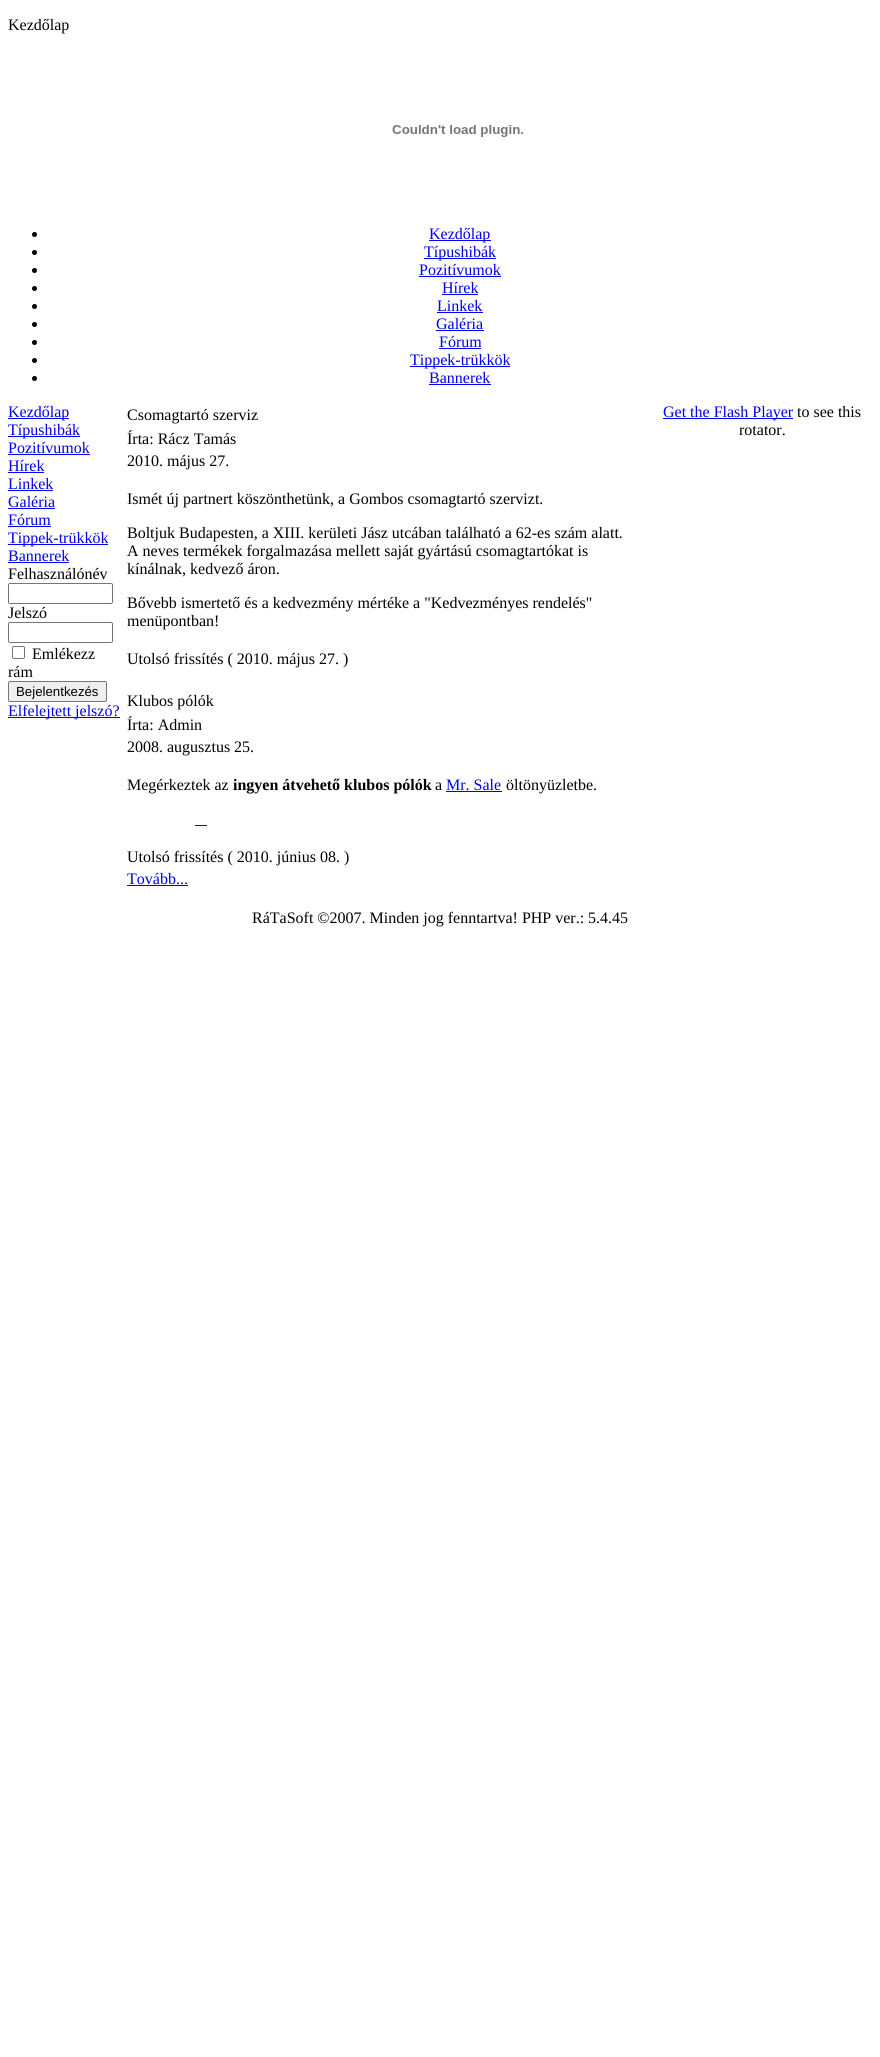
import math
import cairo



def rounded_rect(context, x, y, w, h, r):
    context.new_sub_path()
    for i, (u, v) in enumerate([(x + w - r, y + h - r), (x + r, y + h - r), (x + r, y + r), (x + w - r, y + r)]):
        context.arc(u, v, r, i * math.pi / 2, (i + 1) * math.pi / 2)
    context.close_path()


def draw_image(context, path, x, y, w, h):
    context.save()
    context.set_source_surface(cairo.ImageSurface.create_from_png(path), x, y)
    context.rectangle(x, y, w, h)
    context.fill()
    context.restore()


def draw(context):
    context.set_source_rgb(1, 1, 1)
    context.paint()
    draw_image(context, "images/1.png", 392, 125, 131, 12)
    context.set_source_rgb(0, 0, 0)
    context.arc(34.5, 234.5, 2.5, 0, 2 * math.pi)
    context.fill()
    context.set_source_rgb(0, 0, 238 / 255)
    context.rectangle(429, 240, 62, 1)
    context.fill()
    context.set_source_rgb(0, 0, 0)
    context.arc(34.5, 252.5, 2.5, 0, 2 * math.pi)
    context.fill()
    context.set_source_rgb(0, 0, 238 / 255)
    context.rectangle(424, 258, 72, 1)
    context.fill()
    context.set_source_rgb(0, 0, 0)
    context.arc(34.5, 270.5, 2.5, 0, 2 * math.pi)
    context.fill()
    context.set_source_rgb(0, 0, 238 / 255)
    context.rectangle(419, 276, 82, 1)
    context.fill()
    context.set_source_rgb(0, 0, 0)
    context.arc(34.5, 288.5, 2.5, 0, 2 * math.pi)
    context.fill()
    context.set_source_rgb(0, 0, 238 / 255)
    context.rectangle(442, 294, 36, 1)
    context.fill()
    context.set_source_rgb(0, 0, 0)
    context.arc(34.5, 306.5, 2.5, 0, 2 * math.pi)
    context.fill()
    context.set_source_rgb(0, 0, 238 / 255)
    context.rectangle(437, 312, 46, 1)
    context.fill()
    context.set_source_rgb(0, 0, 0)
    context.arc(34.5, 324.5, 2.5, 0, 2 * math.pi)
    context.fill()
    context.set_source_rgb(0, 0, 238 / 255)
    context.rectangle(436, 330, 48, 1)
    context.fill()
    context.set_source_rgb(0, 0, 0)
    context.arc(34.5, 342.5, 2.5, 0, 2 * math.pi)
    context.fill()
    context.set_source_rgb(0, 0, 238 / 255)
    context.rectangle(439, 348, 42, 1)
    context.fill()
    context.set_source_rgb(0, 0, 0)
    context.arc(34.5, 360.5, 2.5, 0, 2 * math.pi)
    context.fill()
    context.set_source_rgb(0, 0, 238 / 255)
    context.rectangle(410, 366, 100, 1)
    context.fill()
    context.set_source_rgb(0, 0, 0)
    context.arc(34.5, 378.5, 2.5, 0, 2 * math.pi)
    context.fill()
    context.set_source_rgb(0, 0, 238 / 255)
    context.rectangle(429, 384, 62, 1)
    context.fill()
    context.rectangle(8, 418, 61, 1)
    context.fill()
    context.rectangle(8, 436, 72, 1)
    context.fill()
    context.rectangle(8, 454, 82, 1)
    context.fill()
    context.rectangle(8, 472, 36, 1)
    context.fill()
    context.rectangle(8, 490, 45, 1)
    context.fill()
    context.rectangle(8, 508, 47, 1)
    context.fill()
    context.rectangle(8, 526, 43, 1)
    context.fill()
    context.rectangle(8, 544, 100, 1)
    context.fill()
    context.rectangle(8, 562, 61, 1)
    context.fill()
    rounded_rect(context, 8.5, 583.5, 104, 20, 1.5)
    context.set_source_rgb(118 / 255, 118 / 255, 118 / 255)
    context.set_line_width(1)
    context.stroke()
    rounded_rect(context, 8.5, 622.5, 104, 20, 1.5)
    context.stroke()
    rounded_rect(context, 12.5, 646.5, 12, 12, 1.5)
    context.stroke()
    context.set_source_rgb(239 / 255, 239 / 255, 239 / 255)
    rounded_rect(context, 8.5, 681.5, 98, 20, 1.5)
    context.fill_preserve()
    context.set_source_rgb(118 / 255, 118 / 255, 118 / 255)
    context.stroke()
    context.set_source_rgb(0, 0, 238 / 255)
    context.rectangle(8, 717, 112, 1)
    context.fill()
    context.rectangle(446, 791, 56, 1)
    context.fill()
    context.rectangle(195, 825, 12, 1)
    context.fill()
    context.rectangle(127, 885, 61, 1)
    context.fill()
    context.rectangle(663, 418, 130, 1)
    context.fill()
    context.select_font_face("Liberation Serif")
    context.set_font_size(16)
    context.set_source_rgb(0, 0, 0)
    context.move_to(8, 30)
    context.show_text("Kezdőlap")
    context.set_source_rgb(0, 0, 238 / 255)
    context.move_to(429, 239)
    context.show_text("Kezdőlap")
    context.move_to(424, 257)
    context.show_text("Típushibák")
    context.move_to(419, 275)
    context.show_text("Pozitívumok")
    context.move_to(442, 293)
    context.show_text("Hírek")
    context.move_to(437, 311)
    context.show_text("Linkek")
    context.move_to(436, 329)
    context.show_text("Galéria")
    context.move_to(439, 347)
    context.show_text("Fórum")
    context.move_to(410, 365)
    context.show_text("Tippek-trükkök")
    context.move_to(429, 383)
    context.show_text("Bannerek")
    context.move_to(8, 417)
    context.show_text("Kezdőlap")
    context.move_to(8, 435)
    context.show_text("Típushibák")
    context.move_to(8, 453)
    context.show_text("Pozitívumok")
    context.move_to(8, 471)
    context.show_text("Hírek")
    context.move_to(8, 489)
    context.show_text("Linkek")
    context.move_to(8, 507)
    context.show_text("Galéria")
    context.move_to(8, 525)
    context.show_text("Fórum")
    context.move_to(8, 543)
    context.show_text("Tippek-trükkök")
    context.move_to(8, 561)
    context.show_text("Bannerek")
    context.set_source_rgb(0, 0, 0)
    context.move_to(8, 579)
    context.show_text("Felhasználónév")
    context.move_to(8, 618)
    context.show_text("Jelszó")
    context.move_to(32, 659)
    context.show_text("Emlékezz")
    context.move_to(8, 677)
    context.show_text("rám")
    context.select_font_face("Liberation Sans")
    context.set_font_size(13.25)
    context.move_to(16, 696)
    context.show_text("Bejelentkezés")
    context.select_font_face("Liberation Serif")
    context.set_font_size(16)
    context.set_source_rgb(0, 0, 238 / 255)
    context.move_to(8, 716)
    context.show_text("Elfelejtett jelszó?")
    context.set_source_rgb(0, 0, 0)
    context.move_to(127, 420)
    context.show_text("Csomagtartó szerviz")
    context.move_to(127, 444)
    context.show_text("Írta: Rácz Tamás")
    context.move_to(127, 466)
    context.show_text("2010. május 27.")
    context.move_to(127, 504)
    context.show_text("Ismét új partnert köszönthetünk, a Gombos csomagtartó szervizt.")
    context.move_to(127, 538)
    context.show_text("Boltjuk Budapesten, a XIII. kerületi Jász utcában található a 62-es szám alatt.")
    context.move_to(127, 556)
    context.show_text("A neves termékek forgalmazása mellett saját gyártású csomagtartókat is")
    context.move_to(127, 574)
    context.show_text("kínálnak, kedvező áron.")
    context.move_to(127, 608)
    context.show_text("Bővebb ismertető és a kedvezmény mértéke a \"Kedvezményes rendelés\"")
    context.move_to(127, 626)
    context.show_text("menüpontban!")
    context.move_to(127, 664)
    context.show_text("Utolsó frissítés ( 2010. május 27. )")
    context.move_to(127, 706)
    context.show_text("Klubos pólók")
    context.move_to(127, 730)
    context.show_text("Írta: Admin")
    context.move_to(127, 752)
    context.show_text("2008. augusztus 25.")
    context.move_to(127, 790)
    context.show_text("Megérkeztek az")
    context.select_font_face("Liberation Serif", cairo.FontSlant.NORMAL, cairo.FontWeight.BOLD)
    context.move_to(233, 790)
    context.show_text("ingyen átvehető klubos pólók")
    context.select_font_face("Liberation Serif")
    context.move_to(435, 790)
    context.show_text("a")
    context.set_source_rgb(0, 0, 238 / 255)
    context.move_to(446, 790)
    context.show_text("Mr. Sale")
    context.set_source_rgb(0, 0, 0)
    context.move_to(506, 790)
    context.show_text("öltönyüzletbe.")
    context.move_to(127, 862)
    context.show_text("Utolsó frissítés ( 2010. június 08. )")
    context.set_source_rgb(0, 0, 238 / 255)
    context.move_to(127, 884)
    context.show_text("Tovább...")
    context.move_to(663, 417)
    context.show_text("Get the Flash Player")
    context.set_source_rgb(0, 0, 0)
    context.move_to(797, 417)
    context.show_text("to see this")
    context.move_to(739, 435)
    context.show_text("rotator.")
    context.move_to(252, 923)
    context.show_text("RáTaSoft ©2007. Minden jog fenntartva! PHP ver.: 5.4.45")


surface = cairo.ImageSurface(cairo.Format.RGB24, 880, 2057)
context = cairo.Context(surface)
options = cairo.FontOptions()
options.set_hint_metrics(cairo.HintMetrics.OFF)
options.set_hint_style(cairo.HintStyle.NONE)
context.set_font_options(options)
context.set_miter_limit(4)
draw(context)
surface.write_to_png("out.png")
